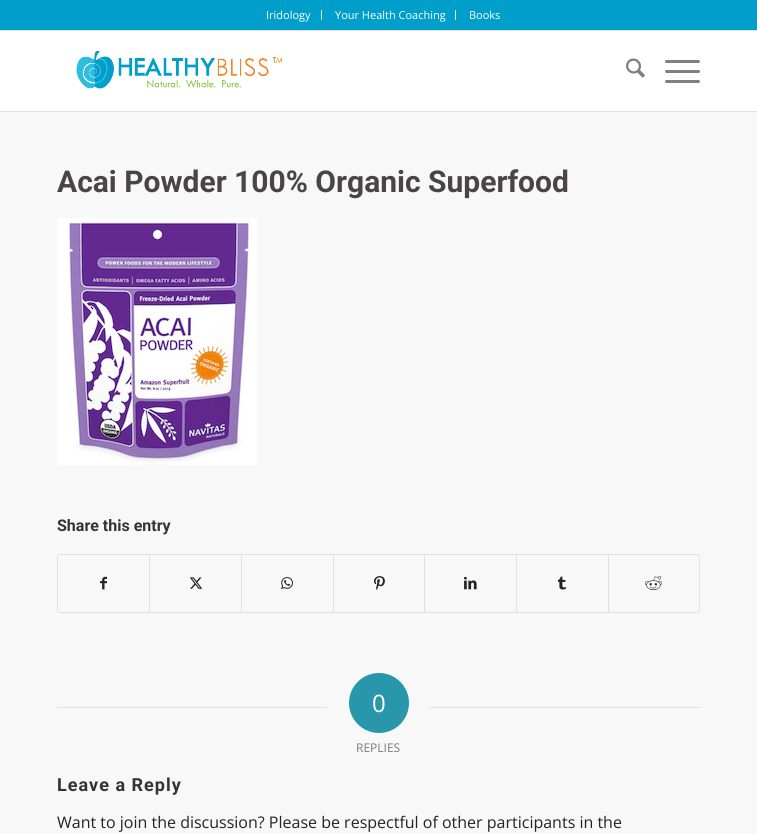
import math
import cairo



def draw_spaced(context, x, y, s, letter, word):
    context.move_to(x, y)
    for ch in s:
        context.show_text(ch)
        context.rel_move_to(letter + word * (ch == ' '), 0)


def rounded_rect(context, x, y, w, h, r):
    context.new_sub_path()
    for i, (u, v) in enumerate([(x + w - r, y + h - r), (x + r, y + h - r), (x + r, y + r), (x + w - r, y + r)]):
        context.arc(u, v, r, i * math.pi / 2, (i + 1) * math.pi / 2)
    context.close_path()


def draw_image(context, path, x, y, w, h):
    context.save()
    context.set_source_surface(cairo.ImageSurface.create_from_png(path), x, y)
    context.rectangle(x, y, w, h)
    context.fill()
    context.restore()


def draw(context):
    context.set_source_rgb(248 / 255, 248 / 255, 248 / 255)
    context.paint()
    context.set_source_rgb(0, 158 / 255, 202 / 255)
    context.rectangle(0, 0, 757, 30)
    context.fill()
    context.set_source_rgb(225 / 255, 225 / 255, 225 / 255)
    context.rectangle(0, 30, 757, 1)
    context.fill()
    context.rectangle(321, 10, 1, 10)
    context.fill()
    context.rectangle(455, 10, 1, 10)
    context.fill()
    context.set_source_rgb(1, 1, 1)
    context.rectangle(0, 31, 757, 80)
    context.fill()
    context.set_source_rgb(225 / 255, 225 / 255, 225 / 255)
    context.rectangle(0, 111, 757, 1)
    context.fill()
    draw_image(context, "images/1.png", 76, 51, 207, 38)
    draw_image(context, "images/2.png", 626, 58, 19, 20)
    context.set_source_rgb(128 / 255, 128 / 255, 128 / 255)
    rounded_rect(context, 665, 70, 35, 3, 1.5)
    context.fill()
    rounded_rect(context, 665, 60, 35, 3, 1.5)
    context.fill()
    rounded_rect(context, 665, 80, 35, 3, 1.5)
    context.fill()
    draw_image(context, "images/3.png", 57, 218, 200, 247)
    rounded_rect(context, 57.5, 554.5, 642, 58, 2.5)
    context.set_source_rgb(225 / 255, 225 / 255, 225 / 255)
    context.set_line_width(1)
    context.stroke()
    draw_image(context, "images/4.png", 100, 576, 7, 14)
    context.rectangle(149, 555, 1, 57)
    context.fill()
    draw_image(context, "images/5.png", 189, 577, 14, 12)
    context.rectangle(241, 555, 1, 57)
    context.fill()
    draw_image(context, "images/6.png", 281, 577, 12, 13)
    context.rectangle(333, 555, 1, 57)
    context.fill()
    draw_image(context, "images/7.png", 374, 576, 11, 14)
    context.rectangle(424, 555, 1, 57)
    context.fill()
    draw_image(context, "images/8.png", 464, 576, 13, 14)
    context.rectangle(516, 555, 1, 57)
    context.fill()
    draw_image(context, "images/9.png", 558, 576, 8, 14)
    context.rectangle(608, 555, 1, 57)
    context.fill()
    draw_image(context, "images/10.png", 645, 576, 17, 15)
    context.rectangle(57, 707, 270, 1)
    context.fill()
    context.set_source_rgb(41 / 255, 151 / 255, 171 / 255)
    context.arc(379, 703, 30, 0, 2 * math.pi)
    context.fill()
    context.set_source_rgb(225 / 255, 225 / 255, 225 / 255)
    context.rectangle(430, 707, 270, 1)
    context.fill()
    context.select_font_face("Open Sans")
    context.set_font_size(11)
    context.set_source_rgb(1, 1, 1)
    context.move_to(266, 19)
    context.show_text("Iridology")
    context.move_to(335, 19)
    context.show_text("Your Health Coaching")
    context.move_to(469, 19)
    context.show_text("Books")
    context.select_font_face("Roboto", cairo.FontSlant.NORMAL, cairo.FontWeight.BOLD)
    context.set_font_size(30)
    context.set_source_rgb(71 / 255, 69 / 255, 69 / 255)
    context.move_to(57, 192)
    context.show_text("Acai Powder 100% Organic Superfood")
    context.set_font_size(16)
    context.set_source_rgb(51 / 255, 51 / 255, 51 / 255)
    context.move_to(57, 531)
    context.show_text("Share this entry")
    context.select_font_face("Open Sans")
    context.set_font_size(24)
    context.set_source_rgb(1, 1, 1)
    context.move_to(372, 712)
    context.show_text("0")
    context.set_font_size(12)
    context.set_source_rgb(124 / 255, 124 / 255, 124 / 255)
    context.move_to(356, 752)
    context.show_text("REPLIES")
    context.select_font_face("Roboto", cairo.FontSlant.NORMAL, cairo.FontWeight.BOLD)
    context.set_font_size(18)
    context.set_source_rgb(51 / 255, 51 / 255, 51 / 255)
    draw_spaced(context, 57, 791, "Leave a Reply", 1, 0)
    context.select_font_face("Open Sans")
    context.set_font_size(16)
    context.set_source_rgb(35 / 255, 35 / 255, 35 / 255)
    context.move_to(57, 828)
    context.show_text("Want to join the discussion? Please be respectful of other participants in the")


surface = cairo.ImageSurface(cairo.Format.RGB24, 757, 834)
context = cairo.Context(surface)
options = cairo.FontOptions()
options.set_hint_metrics(cairo.HintMetrics.OFF)
options.set_hint_style(cairo.HintStyle.NONE)
context.set_font_options(options)
context.set_miter_limit(4)
draw(context)
surface.write_to_png("out.png")
